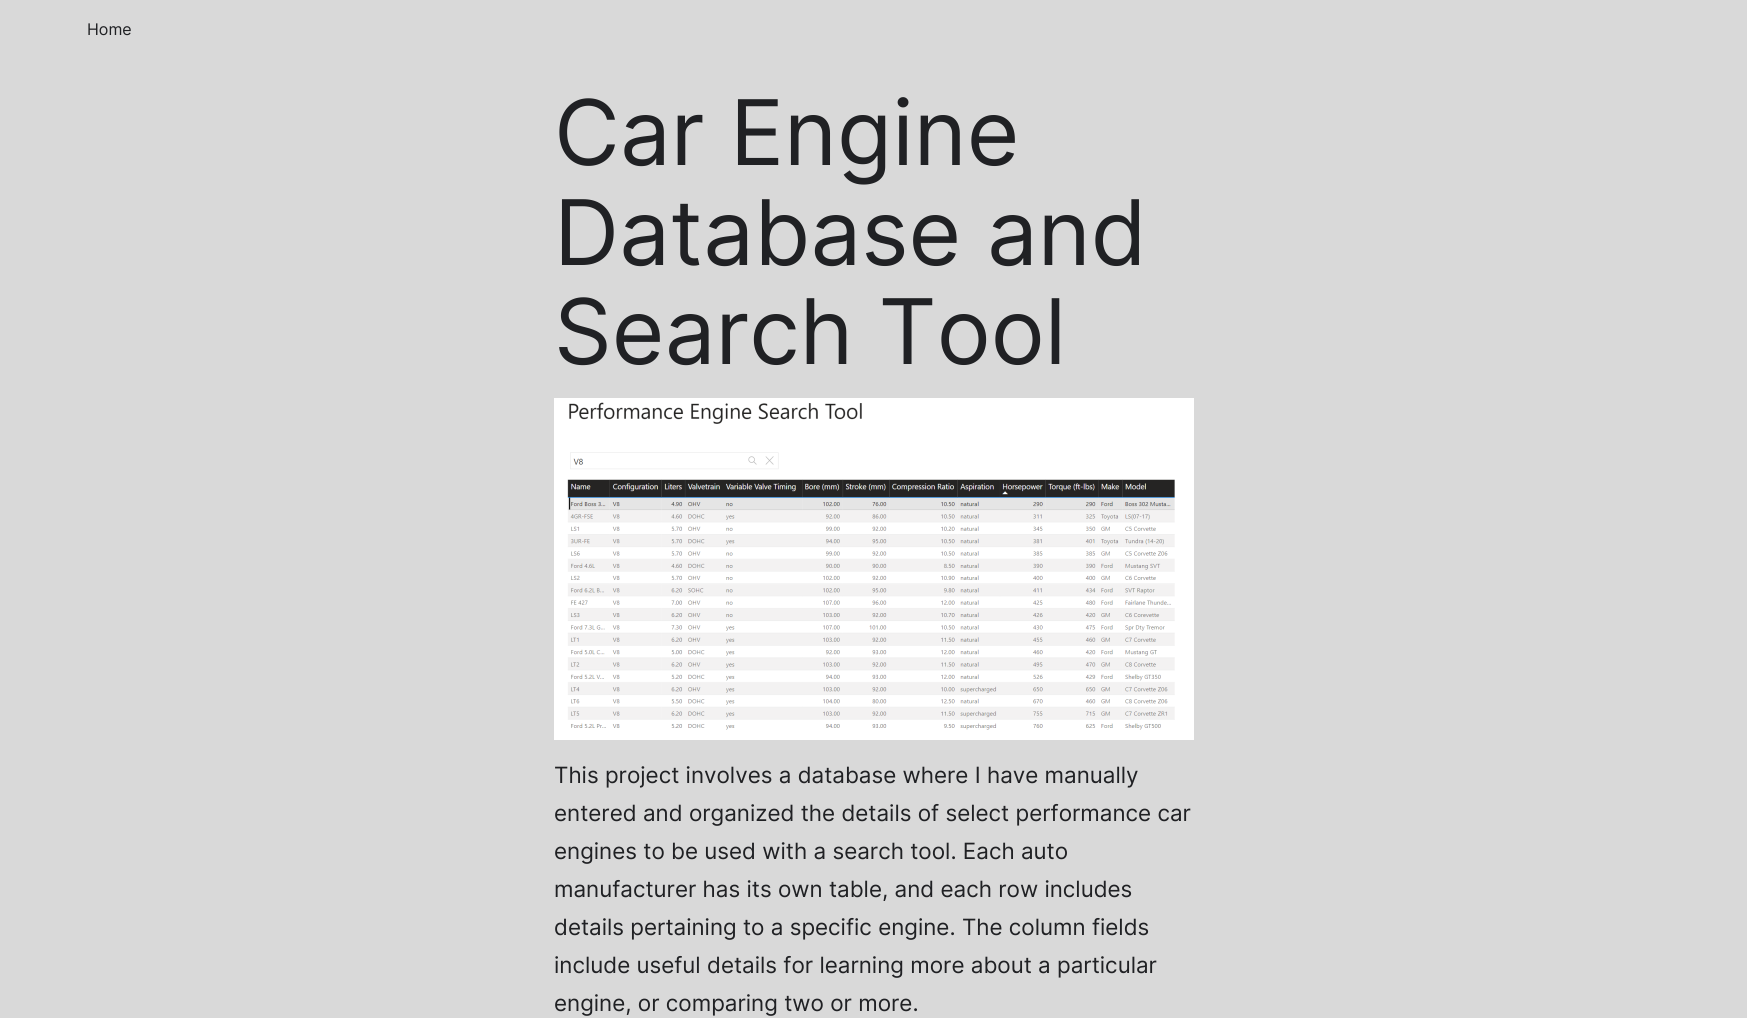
import math
import cairo



def draw_image(context, path, x, y, w, h):
    context.save()
    context.set_source_surface(cairo.ImageSurface.create_from_png(path), x, y)
    context.rectangle(x, y, w, h)
    context.fill()
    context.restore()


def draw(context):
    context.set_source_rgb(217 / 255, 217 / 255, 217 / 255)
    context.paint()
    draw_image(context, "images/1.png", 554, 398, 640, 342)
    context.select_font_face("Inter")
    context.set_font_size(16)
    context.set_source_rgb(32 / 255, 33 / 255, 36 / 255)
    context.move_to(87, 35)
    context.show_text("Home")
    context.set_font_size(90.5)
    context.move_to(554, 165)
    context.show_text("Car Engine")
    context.move_to(554, 265)
    context.show_text("Database and")
    context.move_to(554, 364)
    context.show_text("Search Tool")
    context.set_font_size(22.4)
    context.move_to(554, 783)
    context.show_text("This project involves a database where I have manually")
    context.move_to(554, 821)
    context.show_text("entered and organized the details of select performance car")
    context.move_to(554, 859)
    context.show_text("engines to be used with a search tool. Each auto")
    context.move_to(554, 897)
    context.show_text("manufacturer has its own table, and each row includes")
    context.move_to(554, 935)
    context.show_text("details pertaining to a specific engine. The column fields")
    context.move_to(554, 973)
    context.show_text("include useful details for learning more about a particular")
    context.move_to(554, 1011)
    context.show_text("engine, or comparing two or more.")


surface = cairo.ImageSurface(cairo.Format.RGB24, 1747, 1018)
context = cairo.Context(surface)
options = cairo.FontOptions()
options.set_hint_metrics(cairo.HintMetrics.OFF)
options.set_hint_style(cairo.HintStyle.NONE)
context.set_font_options(options)
context.set_miter_limit(4)
draw(context)
surface.write_to_png("out.png")
